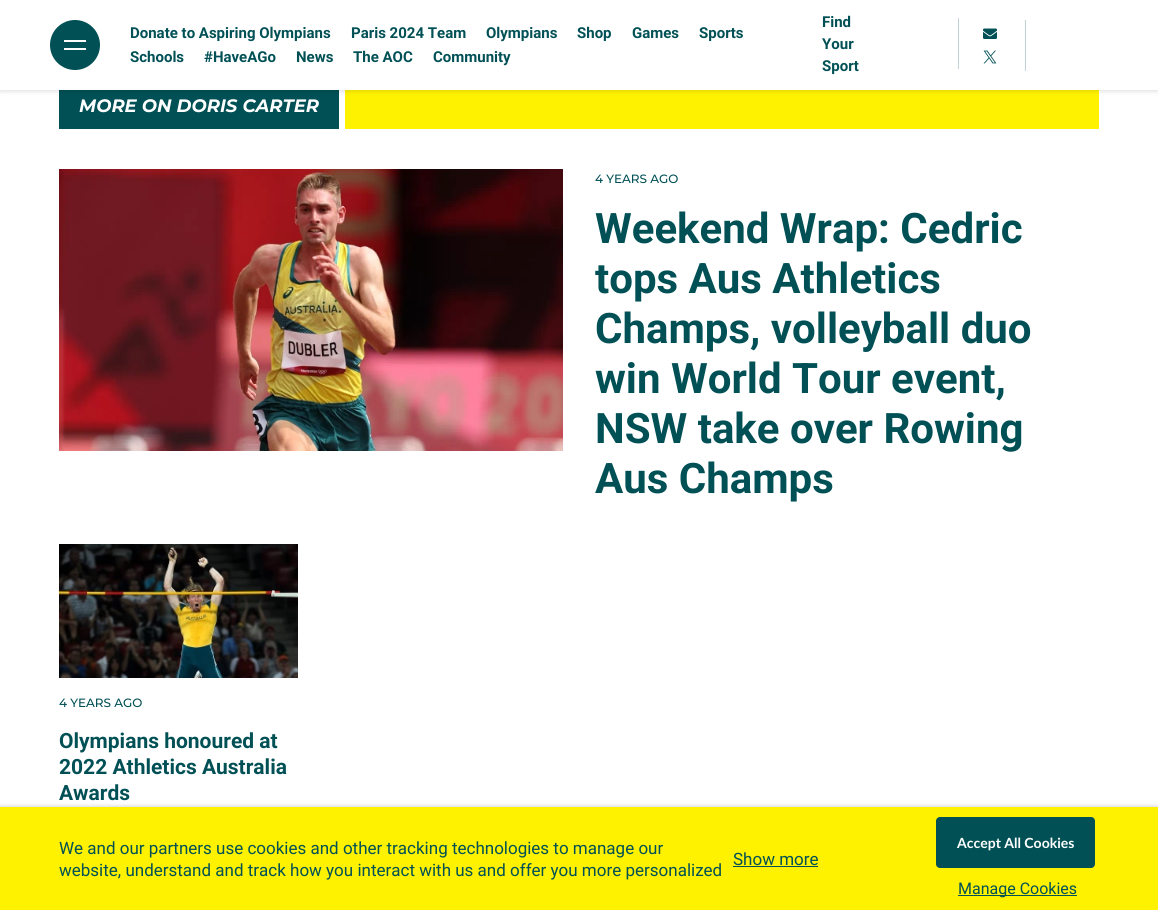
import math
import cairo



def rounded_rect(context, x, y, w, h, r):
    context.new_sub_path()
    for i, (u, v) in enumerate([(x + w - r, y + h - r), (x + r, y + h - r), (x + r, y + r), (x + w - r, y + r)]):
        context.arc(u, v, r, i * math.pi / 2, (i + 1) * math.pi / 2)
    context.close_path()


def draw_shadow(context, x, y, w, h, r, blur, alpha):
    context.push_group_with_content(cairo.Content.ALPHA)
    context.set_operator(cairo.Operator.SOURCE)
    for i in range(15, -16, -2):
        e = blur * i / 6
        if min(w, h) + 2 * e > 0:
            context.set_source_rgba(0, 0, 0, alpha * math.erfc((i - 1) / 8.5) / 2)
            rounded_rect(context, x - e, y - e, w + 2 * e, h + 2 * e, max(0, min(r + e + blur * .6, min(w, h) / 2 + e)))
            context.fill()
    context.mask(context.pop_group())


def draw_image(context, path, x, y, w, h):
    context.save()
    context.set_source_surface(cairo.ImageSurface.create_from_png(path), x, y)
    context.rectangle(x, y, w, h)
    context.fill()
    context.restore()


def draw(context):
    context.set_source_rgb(1, 1, 1)
    context.paint()
    context.set_source_rgb(1, 242 / 255, 0)
    context.rectangle(345, 90, 754, 39)
    context.fill()
    context.set_source_rgb(0, 80 / 255, 85 / 255)
    context.rectangle(59, 90, 280, 39)
    context.fill()
    context.set_source_rgb(0, 0, 0)
    draw_shadow(context, 0, 2, 1158, 90, 0, 2, 0.1)
    context.set_source_rgb(1, 1, 1)
    context.rectangle(0, 0, 1158, 90)
    context.fill()
    context.set_source_rgb(191 / 255, 211 / 255, 213 / 255)
    context.rectangle(958, 18, 1, 51)
    context.fill()
    draw_image(context, "images/1.png", 983, 28, 14, 11)
    draw_image(context, "images/2.png", 983, 50, 14, 14)
    context.set_source_rgb(0, 80 / 255, 85 / 255)
    context.arc(75, 45, 25, 0, 2 * math.pi)
    context.fill()
    context.set_source_rgb(1, 1, 1)
    context.rectangle(64, 40, 22, 2)
    context.fill()
    context.rectangle(64, 48, 22, 2)
    context.fill()
    context.set_source_rgb(191 / 255, 211 / 255, 213 / 255)
    context.rectangle(1025, 20, 1, 51)
    context.fill()
    draw_image(context, "images/3.png", 59, 169, 504, 282)
    draw_image(context, "images/4.png", 59, 544, 239, 134)
    context.set_source_rgb(197 / 255, 197 / 255, 197 / 255)
    draw_shadow(context, 0, 807, 1158, 103, 0, 2.5, 1)
    context.set_source_rgb(1, 242 / 255, 0)
    context.rectangle(0, 807, 1158, 103)
    context.fill()
    context.set_source_rgb(0, 80 / 255, 85 / 255)
    context.rectangle(733, 866, 85, 1)
    context.fill()
    rounded_rect(context, 936, 817, 159, 51, 4)
    context.fill()
    context.rectangle(958, 895, 119, 1)
    context.fill()
    context.select_font_face("Roboto", cairo.FontSlant.NORMAL, cairo.FontWeight.BOLD)
    context.set_font_size(15)
    context.move_to(130, 38)
    context.show_text("Donate to Aspiring Olympians")
    context.move_to(351, 38)
    context.show_text("Paris 2024 Team")
    context.move_to(486, 38)
    context.show_text("Olympians")
    context.move_to(577, 38)
    context.show_text("Shop")
    context.move_to(632, 38)
    context.show_text("Games")
    context.move_to(699, 38)
    context.show_text("Sports")
    context.move_to(130, 62)
    context.show_text("Schools")
    context.move_to(204, 62)
    context.show_text("#HaveAGo")
    context.move_to(296, 62)
    context.show_text("News")
    context.move_to(353, 62)
    context.show_text("The AOC")
    context.move_to(433, 62)
    context.show_text("Community")
    context.move_to(822, 27)
    context.show_text("Find")
    context.move_to(822, 49)
    context.show_text("Your")
    context.move_to(822, 71)
    context.show_text("Sport")
    context.select_font_face("Montserrat", cairo.FontSlant.ITALIC, cairo.FontWeight.BOLD)
    context.set_font_size(18)
    context.set_source_rgb(1, 1, 1)
    context.move_to(79, 112)
    context.show_text("MORE ON DORIS CARTER")
    context.select_font_face("Montserrat Medium")
    context.set_font_size(12)
    context.set_source_rgb(0, 80 / 255, 85 / 255)
    context.move_to(595, 183)
    context.show_text("4 YEARS AGO")
    context.select_font_face("Roboto", cairo.FontSlant.NORMAL, cairo.FontWeight.BOLD)
    context.set_font_size(42)
    context.move_to(595, 243)
    context.show_text("Weekend Wrap: Cedric")
    context.move_to(595, 293)
    context.show_text("tops Aus Athletics")
    context.move_to(595, 343)
    context.show_text("Champs, volleyball duo")
    context.move_to(595, 393)
    context.show_text("win World Tour event,")
    context.move_to(595, 443)
    context.show_text("NSW take over Rowing")
    context.move_to(595, 493)
    context.show_text("Aus Champs")
    context.select_font_face("Montserrat Medium")
    context.set_font_size(12)
    context.move_to(59, 707)
    context.show_text("4 YEARS AGO")
    context.select_font_face("Roboto", cairo.FontSlant.NORMAL, cairo.FontWeight.BOLD)
    context.set_font_size(21)
    context.move_to(59, 748)
    context.show_text("Olympians honoured at")
    context.move_to(59, 774)
    context.show_text("2022 Athletics Australia")
    context.move_to(59, 800)
    context.show_text("Awards")
    context.select_font_face("Roboto")
    context.set_font_size(17)
    context.move_to(59, 854)
    context.show_text("We and our partners use cookies and other tracking technologies to manage our")
    context.move_to(59, 876)
    context.show_text("website, understand and track how you interact with us and offer you more personalized")
    context.move_to(733, 865)
    context.show_text("Show more")
    context.select_font_face("Lato", cairo.FontSlant.NORMAL, cairo.FontWeight.BOLD)
    context.set_font_size(14)
    context.set_source_rgb(1, 1, 1)
    context.move_to(957, 848)
    context.show_text("Accept All Cookies")
    context.select_font_face("Roboto")
    context.set_font_size(16)
    context.set_source_rgb(0, 80 / 255, 85 / 255)
    context.move_to(958, 894)
    context.show_text("Manage Cookies")


surface = cairo.ImageSurface(cairo.Format.RGB24, 1158, 910)
context = cairo.Context(surface)
options = cairo.FontOptions()
options.set_hint_metrics(cairo.HintMetrics.OFF)
options.set_hint_style(cairo.HintStyle.NONE)
context.set_font_options(options)
context.set_miter_limit(4)
draw(context)
surface.write_to_png("out.png")
